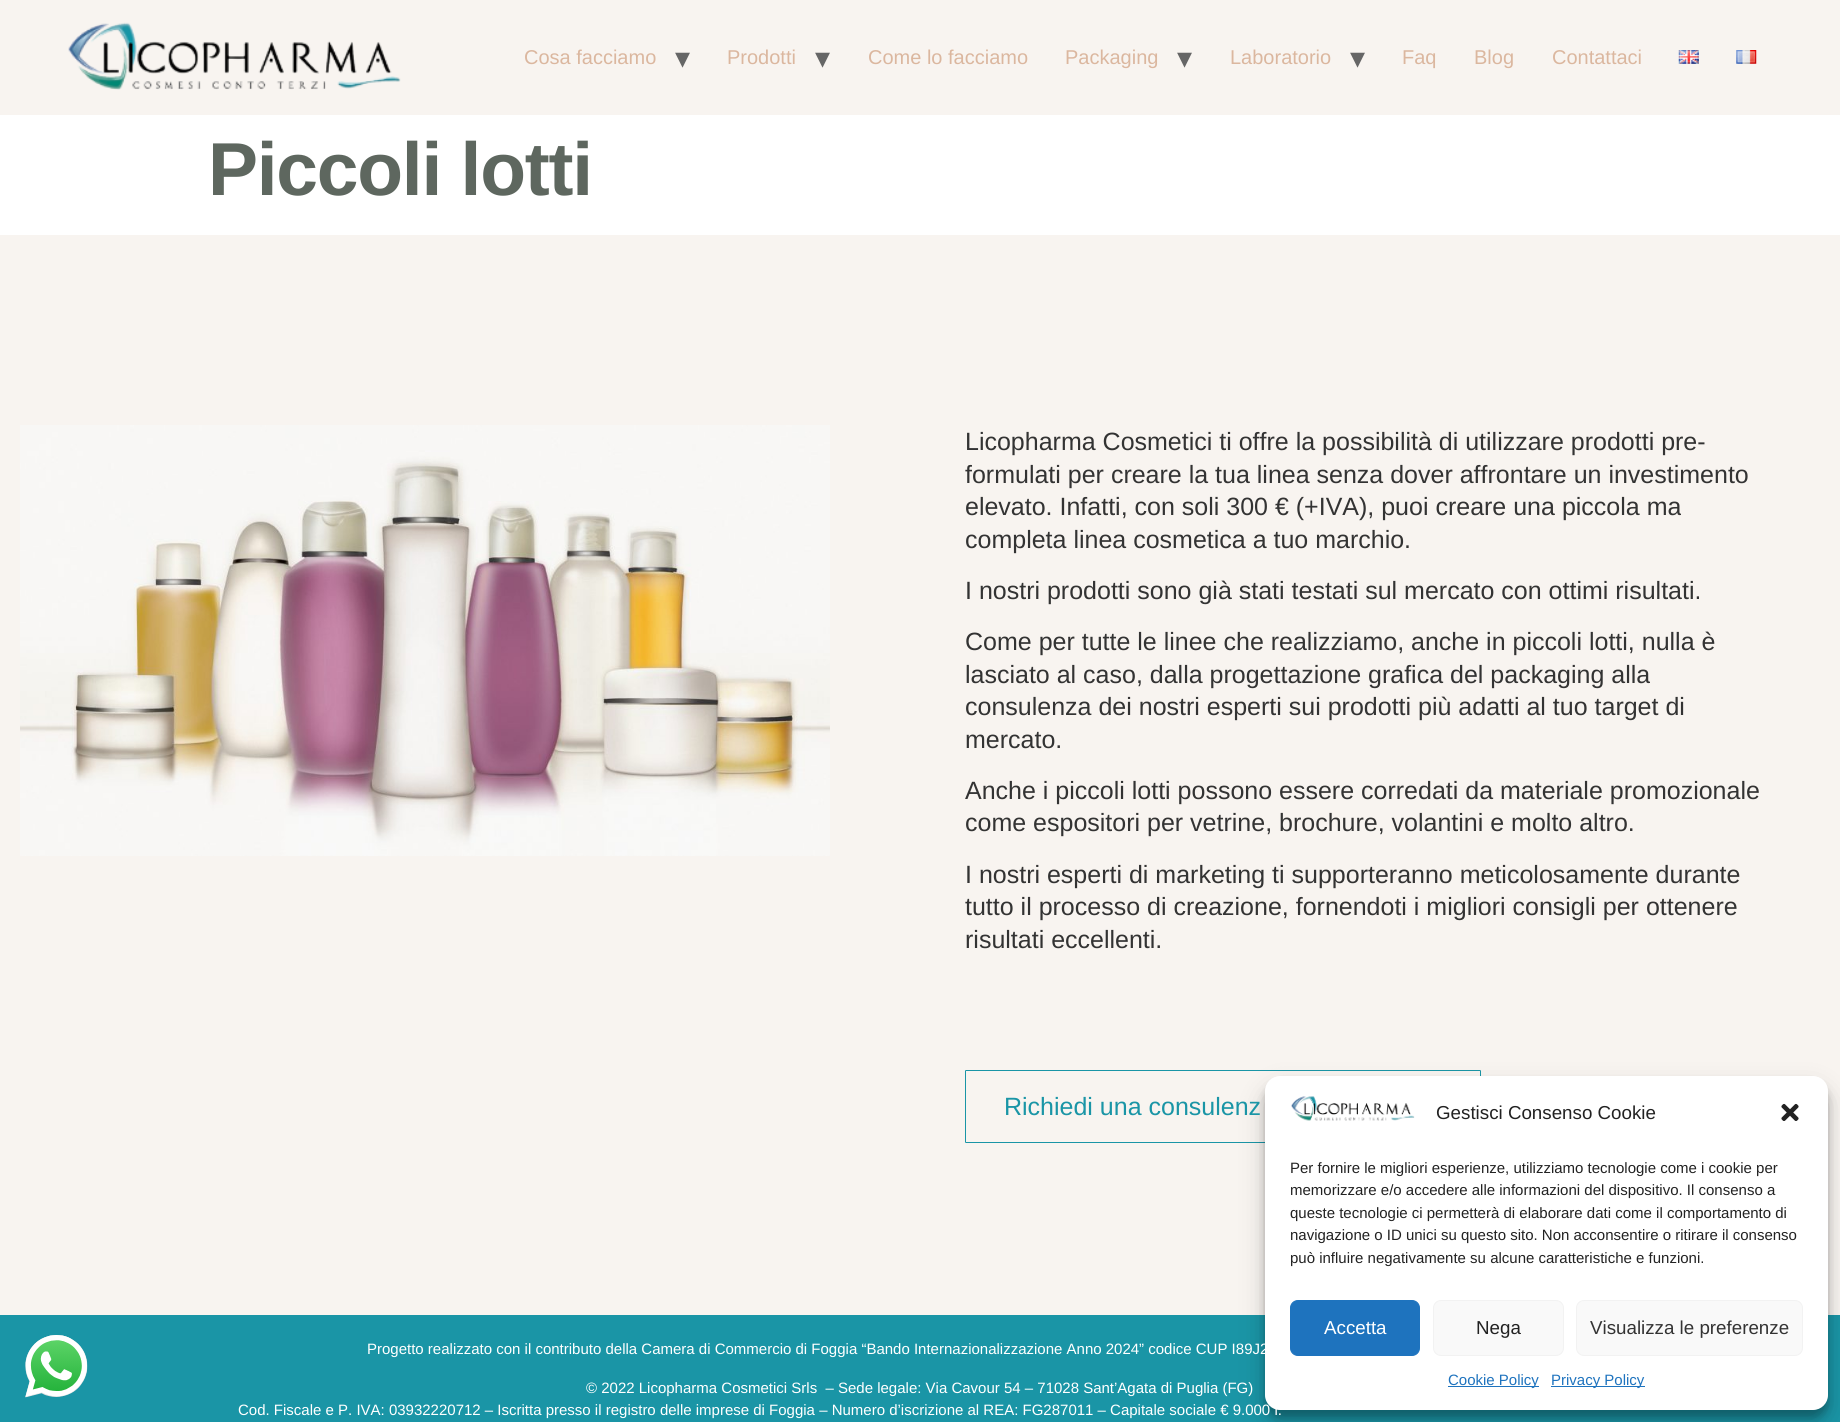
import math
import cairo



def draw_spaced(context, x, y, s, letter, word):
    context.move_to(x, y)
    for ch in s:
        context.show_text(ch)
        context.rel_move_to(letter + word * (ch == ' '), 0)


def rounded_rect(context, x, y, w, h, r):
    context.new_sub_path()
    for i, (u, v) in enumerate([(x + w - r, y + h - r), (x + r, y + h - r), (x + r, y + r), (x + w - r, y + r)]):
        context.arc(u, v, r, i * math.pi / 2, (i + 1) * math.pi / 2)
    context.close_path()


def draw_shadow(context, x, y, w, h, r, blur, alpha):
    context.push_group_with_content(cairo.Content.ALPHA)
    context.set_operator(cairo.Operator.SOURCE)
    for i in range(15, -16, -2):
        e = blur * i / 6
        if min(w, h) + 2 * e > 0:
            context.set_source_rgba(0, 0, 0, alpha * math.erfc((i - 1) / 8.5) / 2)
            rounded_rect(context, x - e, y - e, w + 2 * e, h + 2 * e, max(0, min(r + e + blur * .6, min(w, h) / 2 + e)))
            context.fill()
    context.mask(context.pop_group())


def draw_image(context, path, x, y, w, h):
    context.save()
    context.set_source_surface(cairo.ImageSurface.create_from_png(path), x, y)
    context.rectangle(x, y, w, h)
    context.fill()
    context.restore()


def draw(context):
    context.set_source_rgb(1, 1, 1)
    context.paint()
    context.set_source_rgb(248 / 255, 244 / 255, 240 / 255)
    context.rectangle(0, 0, 1840, 115)
    context.fill()
    draw_image(context, "images/1.png", 68, 22, 333, 68)
    draw_image(context, "images/2.png", 1678, 50, 21, 14)
    draw_image(context, "images/3.png", 1736, 50, 21, 14)
    context.rectangle(0, 235, 1840, 1080)
    context.fill()
    draw_image(context, "images/4.png", 20, 425, 810, 431)
    rounded_rect(context, 965.5, 1070.5, 515, 72, 0.5)
    context.set_source_rgb(26 / 255, 149 / 255, 166 / 255)
    context.set_line_width(1)
    context.stroke()
    context.rectangle(0, 1315, 1840, 107)
    context.fill()
    draw_image(context, "images/5.png", 25, 1335, 63, 63)
    context.set_source_rgb(0, 0, 0)
    draw_shadow(context, 1265, 1084, 563, 334, 15, 4, 0.23)
    draw_shadow(context, 1265, 1089, 563, 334, 15, 12.5, 0.19)
    context.set_source_rgb(1, 1, 1)
    rounded_rect(context, 1265, 1076, 563, 334, 15)
    context.fill()
    draw_image(context, "images/6.png", 1291, 1096, 124, 25)
    draw_image(context, "images/7.png", 1781, 1103, 18, 18)
    context.set_source_rgb(30 / 255, 115 / 255, 190 / 255)
    rounded_rect(context, 1290.5, 1300.5, 129, 55, 7.5)
    context.fill_preserve()
    context.stroke()
    context.set_source_rgb(249 / 255, 249 / 255, 249 / 255)
    rounded_rect(context, 1433.5, 1300.5, 130, 55, 7.5)
    context.fill_preserve()
    context.set_source_rgb(242 / 255, 242 / 255, 242 / 255)
    context.stroke()
    context.set_source_rgb(249 / 255, 249 / 255, 249 / 255)
    rounded_rect(context, 1576.5, 1300.5, 226, 55, 7.5)
    context.fill_preserve()
    context.set_source_rgb(242 / 255, 242 / 255, 242 / 255)
    context.stroke()
    context.set_source_rgb(30 / 255, 115 / 255, 190 / 255)
    context.rectangle(1448, 1386, 91, 1)
    context.fill()
    context.rectangle(1551, 1386, 94, 1)
    context.fill()
    context.select_font_face("Liberation Sans")
    context.set_font_size(20)
    context.set_source_rgb(219 / 255, 183 / 255, 159 / 255)
    context.move_to(524, 64)
    context.show_text("Cosa facciamo")
    context.select_font_face("DejaVu Sans")
    context.set_font_size(30)
    context.set_source_rgb(102 / 255, 102 / 255, 102 / 255)
    context.move_to(675, 68)
    context.show_text("▾")
    context.select_font_face("Liberation Sans")
    context.set_font_size(20)
    context.set_source_rgb(219 / 255, 183 / 255, 159 / 255)
    context.move_to(727, 64)
    context.show_text("Prodotti")
    context.select_font_face("DejaVu Sans")
    context.set_font_size(30)
    context.set_source_rgb(102 / 255, 102 / 255, 102 / 255)
    context.move_to(815, 68)
    context.show_text("▾")
    context.select_font_face("Liberation Sans")
    context.set_font_size(20)
    context.set_source_rgb(219 / 255, 183 / 255, 159 / 255)
    context.move_to(868, 64)
    context.show_text("Come lo facciamo")
    context.move_to(1065, 64)
    context.show_text("Packaging")
    context.select_font_face("DejaVu Sans")
    context.set_font_size(30)
    context.set_source_rgb(102 / 255, 102 / 255, 102 / 255)
    context.move_to(1177, 68)
    context.show_text("▾")
    context.select_font_face("Liberation Sans")
    context.set_font_size(20)
    context.set_source_rgb(219 / 255, 183 / 255, 159 / 255)
    context.move_to(1230, 64)
    context.show_text("Laboratorio")
    context.select_font_face("DejaVu Sans")
    context.set_font_size(30)
    context.set_source_rgb(102 / 255, 102 / 255, 102 / 255)
    context.move_to(1350, 68)
    context.show_text("▾")
    context.select_font_face("Liberation Sans")
    context.set_font_size(20)
    context.set_source_rgb(219 / 255, 183 / 255, 159 / 255)
    context.move_to(1402, 64)
    context.show_text("Faq")
    context.move_to(1474, 64)
    context.show_text("Blog")
    context.move_to(1552, 64)
    context.show_text("Contattaci")
    context.select_font_face("Liberation Sans", cairo.FontSlant.NORMAL, cairo.FontWeight.BOLD)
    context.set_font_size(75)
    context.set_source_rgb(94 / 255, 103 / 255, 95 / 255)
    draw_spaced(context, 208, 195, "Piccoli lotti", -1.25, 0)
    context.select_font_face("Liberation Sans")
    context.set_font_size(25)
    context.set_source_rgb(51 / 255, 51 / 255, 51 / 255)
    context.move_to(965, 450)
    context.show_text("Licopharma Cosmetici ti offre la possibilità di utilizzare prodotti pre-")
    context.move_to(965, 483)
    context.show_text("formulati per creare la tua linea senza dover affrontare un investimento")
    context.move_to(965, 515)
    context.show_text("elevato. Infatti, con soli 300 € (+IVA), puoi creare una piccola ma")
    context.move_to(965, 548)
    context.show_text("completa linea cosmetica a tuo marchio.")
    context.move_to(965, 599)
    context.show_text("I nostri prodotti sono già stati testati sul mercato con ottimi risultati.")
    context.move_to(965, 650)
    context.show_text("Come per tutte le linee che realizziamo, anche in piccoli lotti, nulla è")
    context.move_to(965, 683)
    context.show_text("lasciato al caso, dalla progettazione grafica del packaging alla")
    context.move_to(965, 715)
    context.show_text("consulenza dei nostri esperti sui prodotti più adatti al tuo target di")
    context.move_to(965, 748)
    context.show_text("mercato.")
    context.move_to(965, 799)
    context.show_text("Anche i piccoli lotti possono essere corredati da materiale promozionale")
    context.move_to(965, 831)
    context.show_text("come espositori per vetrine, brochure, volantini e molto altro.")
    context.move_to(965, 883)
    context.show_text("I nostri esperti di marketing ti supporteranno meticolosamente durante")
    context.move_to(965, 915)
    context.show_text("tutto il processo di creazione, fornendoti i migliori consigli per ottenere")
    context.move_to(965, 948)
    context.show_text("risultati eccellenti.")
    context.set_source_rgb(26 / 255, 149 / 255, 166 / 255)
    context.move_to(1004, 1115)
    context.show_text("Richiedi una consulenz")
    context.set_font_size(15)
    context.set_source_rgb(1, 1, 1)
    context.move_to(367, 1354)
    context.show_text("Progetto realizzato con il contributo della Camera di Commercio di Foggia “Bando Internazionalizzazione Anno 2024” codice CUP I89J2")
    context.move_to(586, 1393)
    context.show_text("© 2022 Licopharma Cosmetici Srls  – Sede legale: Via Cavour 54 – 71028 Sant’Agata di Puglia (FG)")
    context.move_to(238, 1415)
    context.show_text("Cod. Fiscale e P. IVA: 03932220712 – Iscritta presso il registro delle imprese di Foggia – Numero d’iscrizione al REA: FG287011 – Capitale sociale € 9.000 i.")
    context.set_font_size(18.75)
    context.set_source_rgb(34 / 255, 34 / 255, 34 / 255)
    context.move_to(1436, 1119)
    context.show_text("Gestisci Consenso Cookie")
    context.set_font_size(15)
    context.move_to(1290, 1173)
    context.show_text("Per fornire le migliori esperienze, utilizziamo tecnologie come i cookie per")
    context.move_to(1290, 1195)
    context.show_text("memorizzare e/o accedere alle informazioni del dispositivo. Il consenso a")
    context.move_to(1290, 1218)
    context.show_text("queste tecnologie ci permetterà di elaborare dati come il comportamento di")
    context.move_to(1290, 1240)
    context.show_text("navigazione o ID unici su questo sito. Non acconsentire o ritirare il consenso")
    context.move_to(1290, 1263)
    context.show_text("può influire negativamente su alcune caratteristiche e funzioni.")
    context.set_font_size(18.75)
    context.set_source_rgb(1, 1, 1)
    context.move_to(1324, 1334)
    context.show_text("Accetta")
    context.set_source_rgb(34 / 255, 34 / 255, 34 / 255)
    context.move_to(1476, 1334)
    context.show_text("Nega")
    context.set_source_rgb(51 / 255, 51 / 255, 51 / 255)
    context.move_to(1590, 1334)
    context.show_text("Visualizza le preferenze")
    context.set_font_size(15)
    context.set_source_rgb(30 / 255, 115 / 255, 190 / 255)
    context.move_to(1448, 1385)
    context.show_text("Cookie Policy")
    context.move_to(1551, 1385)
    context.show_text("Privacy Policy")


surface = cairo.ImageSurface(cairo.Format.RGB24, 1840, 1422)
context = cairo.Context(surface)
options = cairo.FontOptions()
options.set_hint_metrics(cairo.HintMetrics.OFF)
options.set_hint_style(cairo.HintStyle.NONE)
context.set_font_options(options)
context.set_miter_limit(4)
draw(context)
surface.write_to_png("out.png")
